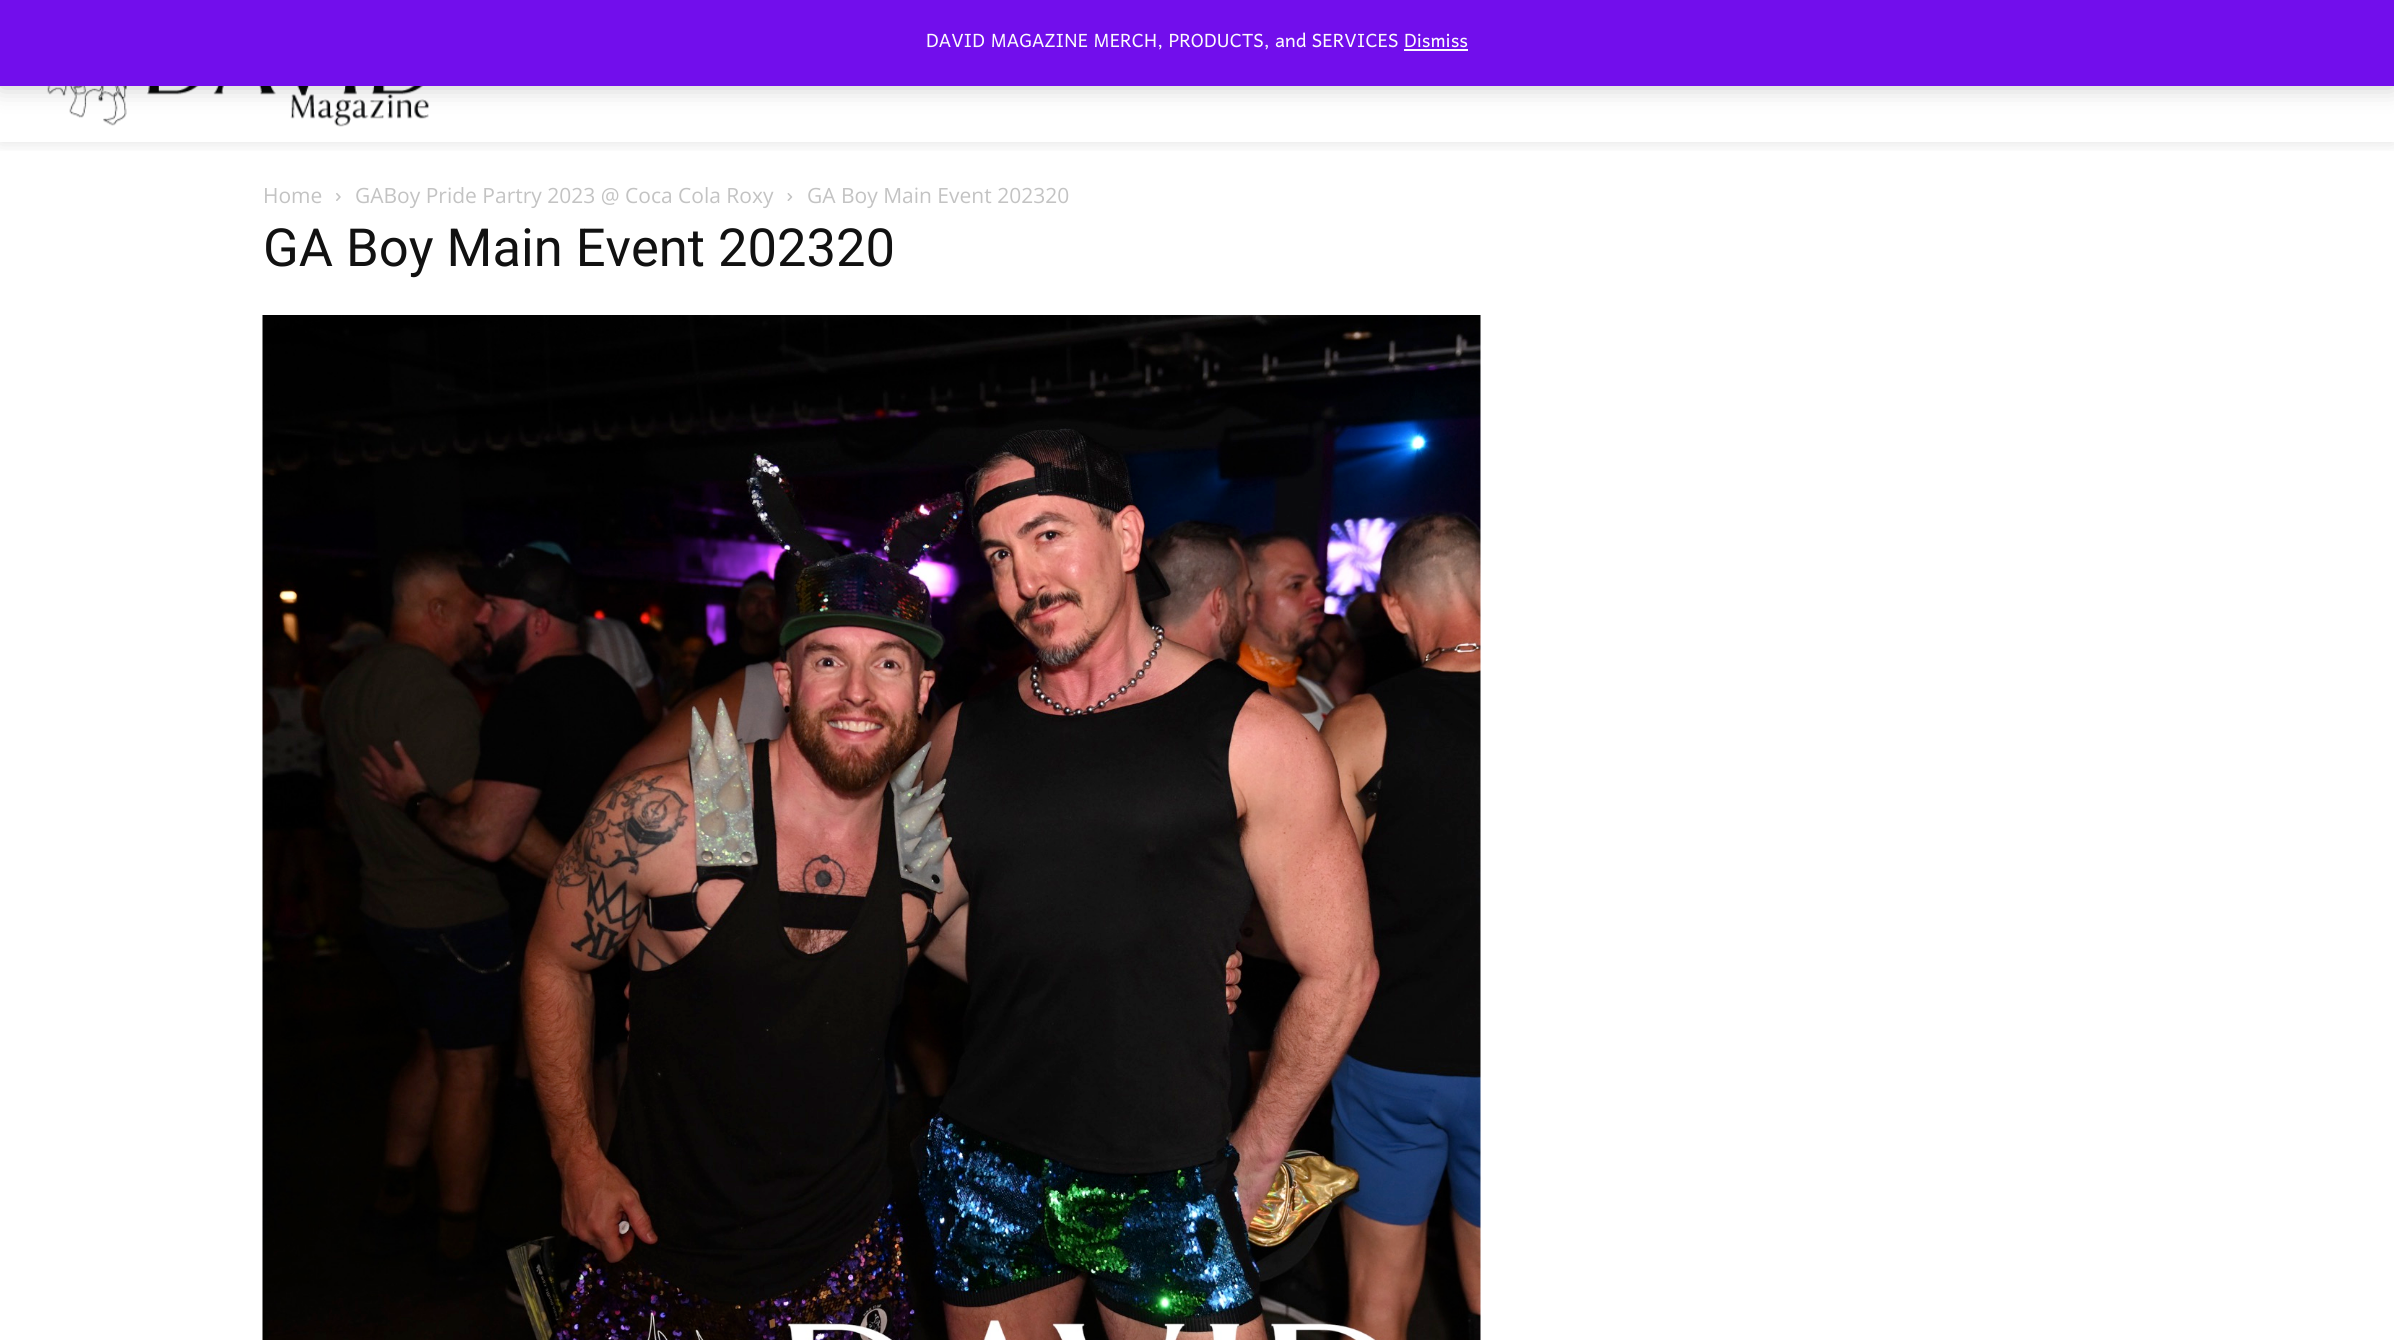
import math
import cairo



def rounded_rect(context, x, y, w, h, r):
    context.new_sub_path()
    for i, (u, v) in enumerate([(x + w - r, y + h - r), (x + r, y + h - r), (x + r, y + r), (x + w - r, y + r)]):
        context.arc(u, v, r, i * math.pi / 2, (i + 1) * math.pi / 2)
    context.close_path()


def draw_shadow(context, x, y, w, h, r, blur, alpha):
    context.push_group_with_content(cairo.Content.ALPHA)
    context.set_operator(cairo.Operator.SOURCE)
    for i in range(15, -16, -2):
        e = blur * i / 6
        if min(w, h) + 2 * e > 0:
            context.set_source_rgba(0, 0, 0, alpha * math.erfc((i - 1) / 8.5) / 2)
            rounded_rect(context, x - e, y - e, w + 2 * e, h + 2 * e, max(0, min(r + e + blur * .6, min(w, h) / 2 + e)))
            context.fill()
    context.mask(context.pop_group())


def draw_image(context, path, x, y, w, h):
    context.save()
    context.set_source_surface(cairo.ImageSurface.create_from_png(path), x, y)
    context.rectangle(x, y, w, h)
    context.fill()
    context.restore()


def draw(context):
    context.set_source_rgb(1, 1, 1)
    context.paint()
    draw_image(context, "images/1.png", 47, 86, 382, 41)
    context.set_source_rgb(0, 0, 0)
    draw_shadow(context, 0, 2, 2394, 86, 0, 12, 0.2)
    context.save()
    context.rectangle(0, 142, 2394, 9)
    context.clip()
    draw_shadow(context, 0, 0, 2394, 142, 0, 9, 0.12)
    context.restore()
    context.set_source_rgb(114 / 255, 14 / 255, 236 / 255)
    context.rectangle(0, 0, 2394, 86)
    context.fill()
    context.set_source_rgb(252 / 255, 251 / 255, 254 / 255)
    context.rectangle(1404, 49, 64, 2)
    context.fill()
    draw_image(context, "images/2.png", 336, 193, 5, 8)
    draw_image(context, "images/3.png", 787, 193, 6, 8)
    draw_image(context, "images/4.png", 262, 315, 1219, 1025)
    context.select_font_face("Harmattan")
    context.set_font_size(24.5)
    context.move_to(926, 47)
    context.show_text("DAVID MAGAZINE MERCH, PRODUCTS, and SERVICES Dismiss")
    context.select_font_face("Open Sans")
    context.set_font_size(21)
    context.set_source_rgb(195 / 255, 195 / 255, 195 / 255)
    context.move_to(263, 203)
    context.show_text("Home")
    context.move_to(355, 203)
    context.show_text("GABoy Pride Partry 2023 @ Coca Cola Roxy")
    context.move_to(807, 203)
    context.show_text("GA Boy Main Event 202320")
    context.select_font_face("Roboto")
    context.set_font_size(52.5)
    context.set_source_rgb(17 / 255, 17 / 255, 17 / 255)
    context.move_to(263, 266)
    context.show_text("GA Boy Main Event 202320")


surface = cairo.ImageSurface(cairo.Format.RGB24, 2394, 1340)
context = cairo.Context(surface)
options = cairo.FontOptions()
options.set_hint_metrics(cairo.HintMetrics.OFF)
options.set_hint_style(cairo.HintStyle.NONE)
context.set_font_options(options)
context.set_miter_limit(4)
draw(context)
surface.write_to_png("out.png")
